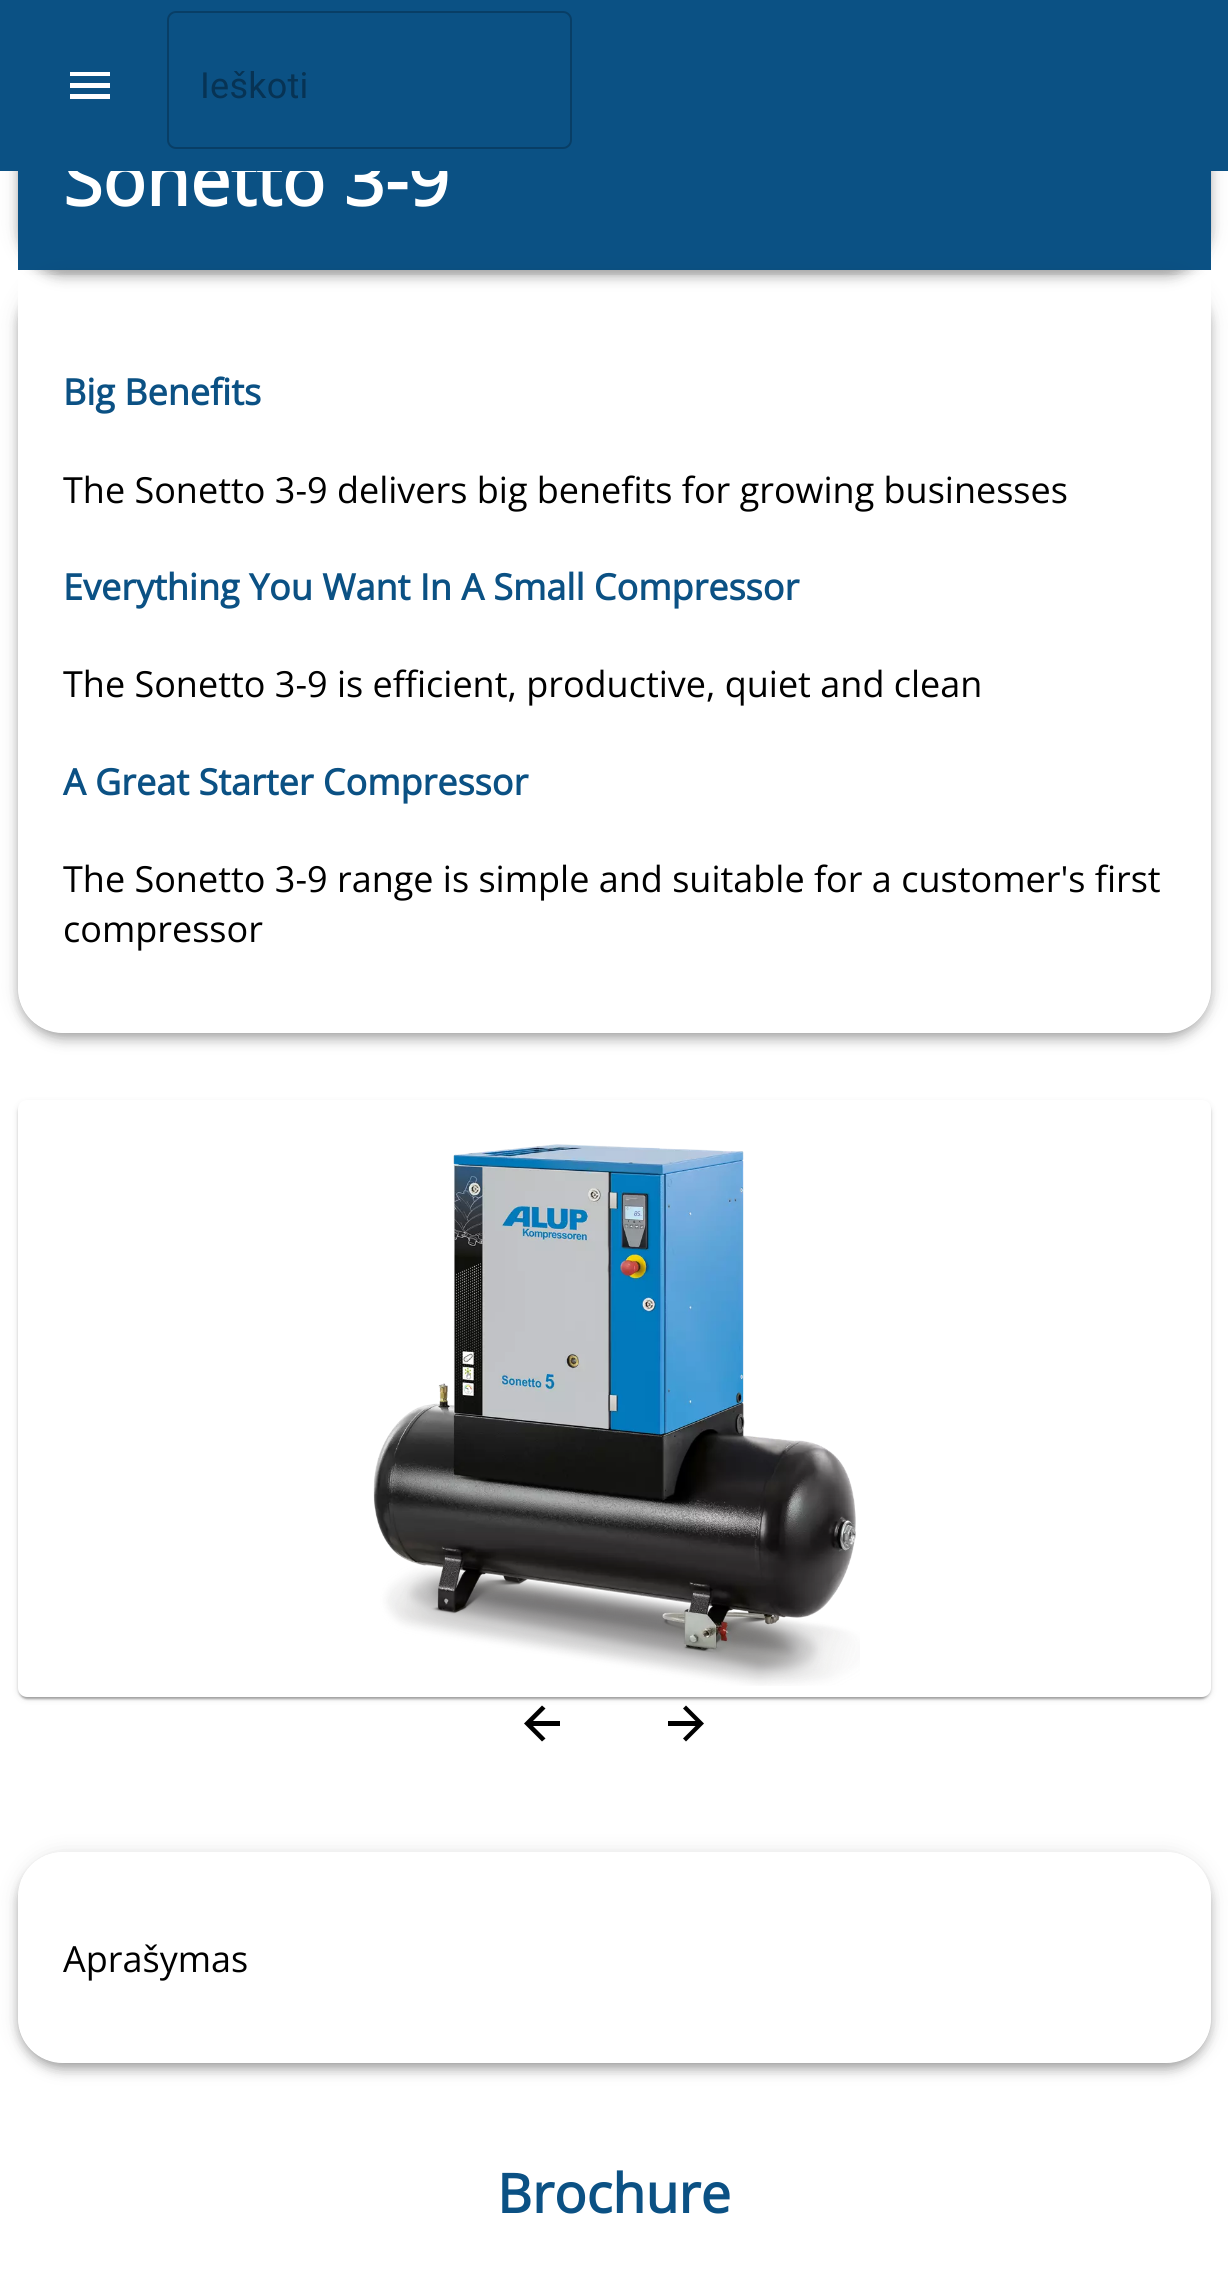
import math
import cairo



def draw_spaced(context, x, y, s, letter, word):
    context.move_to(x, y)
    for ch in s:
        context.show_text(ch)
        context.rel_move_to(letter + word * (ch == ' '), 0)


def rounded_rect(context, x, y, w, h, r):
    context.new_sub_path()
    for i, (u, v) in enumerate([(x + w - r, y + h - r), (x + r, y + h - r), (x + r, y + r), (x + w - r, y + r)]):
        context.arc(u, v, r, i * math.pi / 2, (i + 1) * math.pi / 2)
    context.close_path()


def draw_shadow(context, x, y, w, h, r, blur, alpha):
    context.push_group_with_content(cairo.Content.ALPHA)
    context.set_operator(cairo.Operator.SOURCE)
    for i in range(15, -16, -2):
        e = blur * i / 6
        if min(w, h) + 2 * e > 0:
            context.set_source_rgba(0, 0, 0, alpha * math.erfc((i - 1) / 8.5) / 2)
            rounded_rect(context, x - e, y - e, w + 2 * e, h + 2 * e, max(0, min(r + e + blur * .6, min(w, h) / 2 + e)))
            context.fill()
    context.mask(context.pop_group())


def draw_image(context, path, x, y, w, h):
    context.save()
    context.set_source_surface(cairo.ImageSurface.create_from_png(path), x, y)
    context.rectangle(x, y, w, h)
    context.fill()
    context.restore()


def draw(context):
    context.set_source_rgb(1, 1, 1)
    context.paint()
    context.set_source_rgb(0, 0, 0)
    draw_shadow(context, 18, 86, 1193, 186, 45, 11, 0.12)
    draw_shadow(context, 18, 92, 1193, 187, 45, 5.5, 0.14)
    draw_shadow(context, 20, 90, 1188, 182, 43, 4.5, 0.2)
    context.set_source_rgb(11 / 255, 81 / 255, 132 / 255)
    context.rectangle(18, 171, 1193, 99)
    context.fill()
    context.save()
    context.set_fill_rule(cairo.FillRule.EVEN_ODD)
    context.new_path()
    context.move_to(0, 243)
    context.line_to(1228, 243)
    context.line_to(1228, 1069)
    context.line_to(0, 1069)
    context.close_path()
    context.move_to(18, 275)
    context.line_to(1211, 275)
    context.line_to(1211, 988)
    context.curve_to(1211, 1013, 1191, 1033, 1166, 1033)
    context.line_to(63, 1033)
    context.curve_to(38, 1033, 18, 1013, 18, 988)
    context.close_path()
    context.clip()
    context.set_source_rgb(0, 0, 0)
    draw_shadow(context, 18, 277, 1193, 758, 45, 11, 0.12)
    context.restore()
    context.save()
    context.set_fill_rule(cairo.FillRule.EVEN_ODD)
    context.new_path()
    context.move_to(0, 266)
    context.line_to(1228, 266)
    context.line_to(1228, 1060)
    context.line_to(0, 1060)
    context.close_path()
    context.move_to(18, 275)
    context.line_to(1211, 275)
    context.line_to(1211, 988)
    context.curve_to(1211, 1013, 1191, 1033, 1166, 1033)
    context.line_to(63, 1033)
    context.curve_to(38, 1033, 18, 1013, 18, 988)
    context.close_path()
    context.clip()
    context.set_source_rgb(0, 0, 0)
    draw_shadow(context, 18, 284, 1193, 758, 45, 5.5, 0.14)
    context.restore()
    context.save()
    context.set_fill_rule(cairo.FillRule.EVEN_ODD)
    context.new_path()
    context.move_to(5, 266)
    context.line_to(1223, 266)
    context.line_to(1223, 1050)
    context.line_to(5, 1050)
    context.close_path()
    context.move_to(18, 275)
    context.line_to(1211, 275)
    context.line_to(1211, 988)
    context.curve_to(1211, 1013, 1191, 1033, 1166, 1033)
    context.line_to(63, 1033)
    context.curve_to(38, 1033, 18, 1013, 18, 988)
    context.close_path()
    context.clip()
    context.set_source_rgb(0, 0, 0)
    draw_shadow(context, 20, 281, 1188, 754, 43, 4.5, 0.2)
    context.restore()
    context.set_source_rgb(0, 0, 0)
    draw_shadow(context, 18, 1103, 1193, 596, 9, 3.5, 0.12)
    draw_shadow(context, 18, 1103, 1193, 596, 9, 1, 0.14)
    draw_shadow(context, 20, 1107, 1188, 592, 7, 1, 0.2)
    context.set_source_rgb(1, 1, 1)
    rounded_rect(context, 18, 1100, 1193, 597, 9)
    context.fill()
    draw_image(context, "images/1.png", 373, 1144, 487, 542)
    context.set_source_rgb(0, 0, 0)
    context.new_path()
    context.move_to(560, 1721)
    context.line_to(533, 1721)
    context.line_to(545.5, 1708.5)
    context.line_to(542, 1705.5)
    context.line_to(524, 1723.5)
    context.line_to(542, 1741.5)
    context.line_to(545.5, 1738.5)
    context.line_to(533, 1726)
    context.line_to(560, 1726)
    context.close_path()
    context.fill()
    context.new_path()
    context.move_to(686, 1705.5)
    context.line_to(683, 1708.5)
    context.line_to(695.5, 1721)
    context.line_to(668, 1721)
    context.line_to(668, 1726)
    context.line_to(695.5, 1726)
    context.line_to(683, 1738.5)
    context.line_to(686, 1741.5)
    context.line_to(704, 1723.5)
    context.close_path()
    context.fill()
    context.save()
    context.set_fill_rule(cairo.FillRule.EVEN_ODD)
    context.new_path()
    context.move_to(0, 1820)
    context.line_to(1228, 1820)
    context.line_to(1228, 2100)
    context.line_to(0, 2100)
    context.close_path()
    context.move_to(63, 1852)
    context.line_to(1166, 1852)
    context.curve_to(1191, 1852, 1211, 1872, 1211, 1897)
    context.line_to(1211, 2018)
    context.curve_to(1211, 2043, 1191, 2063, 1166, 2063)
    context.line_to(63, 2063)
    context.curve_to(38, 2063, 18, 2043, 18, 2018)
    context.line_to(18, 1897)
    context.curve_to(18, 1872, 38, 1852, 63, 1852)
    context.close_path()
    context.clip()
    context.set_source_rgb(0, 0, 0)
    draw_shadow(context, 18, 1854, 1193, 212, 45, 11, 0.12)
    context.restore()
    context.save()
    context.set_fill_rule(cairo.FillRule.EVEN_ODD)
    context.new_path()
    context.move_to(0, 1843)
    context.line_to(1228, 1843)
    context.line_to(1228, 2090)
    context.line_to(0, 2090)
    context.close_path()
    context.move_to(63, 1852)
    context.line_to(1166, 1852)
    context.curve_to(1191, 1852, 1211, 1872, 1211, 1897)
    context.line_to(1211, 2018)
    context.curve_to(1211, 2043, 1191, 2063, 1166, 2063)
    context.line_to(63, 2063)
    context.curve_to(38, 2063, 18, 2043, 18, 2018)
    context.line_to(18, 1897)
    context.curve_to(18, 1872, 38, 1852, 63, 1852)
    context.close_path()
    context.clip()
    context.set_source_rgb(0, 0, 0)
    draw_shadow(context, 18, 1861, 1193, 211, 45, 5.5, 0.14)
    context.restore()
    context.save()
    context.set_fill_rule(cairo.FillRule.EVEN_ODD)
    context.new_path()
    context.move_to(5, 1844)
    context.line_to(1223, 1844)
    context.line_to(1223, 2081)
    context.line_to(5, 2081)
    context.close_path()
    context.move_to(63, 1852)
    context.line_to(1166, 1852)
    context.curve_to(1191, 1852, 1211, 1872, 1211, 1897)
    context.line_to(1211, 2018)
    context.curve_to(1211, 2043, 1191, 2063, 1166, 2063)
    context.line_to(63, 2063)
    context.curve_to(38, 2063, 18, 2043, 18, 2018)
    context.line_to(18, 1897)
    context.curve_to(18, 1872, 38, 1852, 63, 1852)
    context.close_path()
    context.clip()
    context.set_source_rgb(0, 0, 0)
    draw_shadow(context, 20, 1859, 1188, 207, 43, 4.5, 0.2)
    context.restore()
    context.select_font_face("Open Sans", cairo.FontSlant.NORMAL, cairo.FontWeight.BOLD)
    context.set_font_size(72)
    context.set_source_rgb(1, 1, 1)
    context.move_to(63, 206)
    context.show_text("Sonetto 3-9")
    context.set_source_rgb(11 / 255, 81 / 255, 132 / 255)
    context.rectangle(0, 0, 1228, 171)
    context.fill()
    rounded_rect(context, 168, 12, 403, 136, 8)
    context.set_source_rgb(8 / 255, 62 / 255, 102 / 255)
    context.stroke()
    context.select_font_face("Roboto")
    context.set_font_size(36)
    context.set_source_rgb(7 / 255, 51 / 255, 84 / 255)
    draw_spaced(context, 200, 98, "Ieškoti", 0.25, 0)
    context.set_source_rgb(1, 1, 1)
    context.new_path()
    context.move_to(70, 99)
    context.line_to(110, 99)
    context.line_to(110, 94)
    context.line_to(70, 94)
    context.close_path()
    context.move_to(70, 88)
    context.line_to(110, 88)
    context.line_to(110, 83)
    context.line_to(70, 83)
    context.close_path()
    context.move_to(70, 72)
    context.line_to(70, 76)
    context.line_to(110, 76)
    context.line_to(110, 72)
    context.close_path()
    context.fill()
    context.select_font_face("Open Sans", cairo.FontSlant.NORMAL, cairo.FontWeight.BOLD)
    context.set_source_rgb(11 / 255, 81 / 255, 132 / 255)
    context.move_to(63, 405)
    context.show_text("Big Benefits")
    context.select_font_face("Open Sans")
    context.set_source_rgb(0, 0, 0)
    context.move_to(63, 503)
    context.show_text("The Sonetto 3-9 delivers big benefits for growing businesses")
    context.select_font_face("Open Sans", cairo.FontSlant.NORMAL, cairo.FontWeight.BOLD)
    context.set_source_rgb(11 / 255, 81 / 255, 132 / 255)
    context.move_to(63, 600)
    context.show_text("Everything You Want In A Small Compressor")
    context.select_font_face("Open Sans")
    context.set_source_rgb(0, 0, 0)
    context.move_to(63, 697)
    context.show_text("The Sonetto 3-9 is efficient, productive, quiet and clean")
    context.select_font_face("Open Sans", cairo.FontSlant.NORMAL, cairo.FontWeight.BOLD)
    context.set_source_rgb(11 / 255, 81 / 255, 132 / 255)
    context.move_to(63, 795)
    context.show_text("A Great Starter Compressor")
    context.select_font_face("Open Sans")
    context.set_source_rgb(0, 0, 0)
    context.move_to(63, 892)
    context.show_text("The Sonetto 3-9 range is simple and suitable for a customer's first")
    context.move_to(63, 942)
    context.show_text("compressor")
    context.move_to(63, 1972)
    context.show_text("Aprašymas")
    context.select_font_face("Open Sans", cairo.FontSlant.NORMAL, cairo.FontWeight.BOLD)
    context.set_font_size(54)
    context.set_source_rgb(11 / 255, 81 / 255, 132 / 255)
    context.move_to(497, 2213)
    context.show_text("Brochure")


surface = cairo.ImageSurface(cairo.Format.RGB24, 1228, 2287)
context = cairo.Context(surface)
options = cairo.FontOptions()
options.set_hint_metrics(cairo.HintMetrics.OFF)
options.set_hint_style(cairo.HintStyle.NONE)
context.set_font_options(options)
context.set_miter_limit(4)
draw(context)
surface.write_to_png("out.png")
